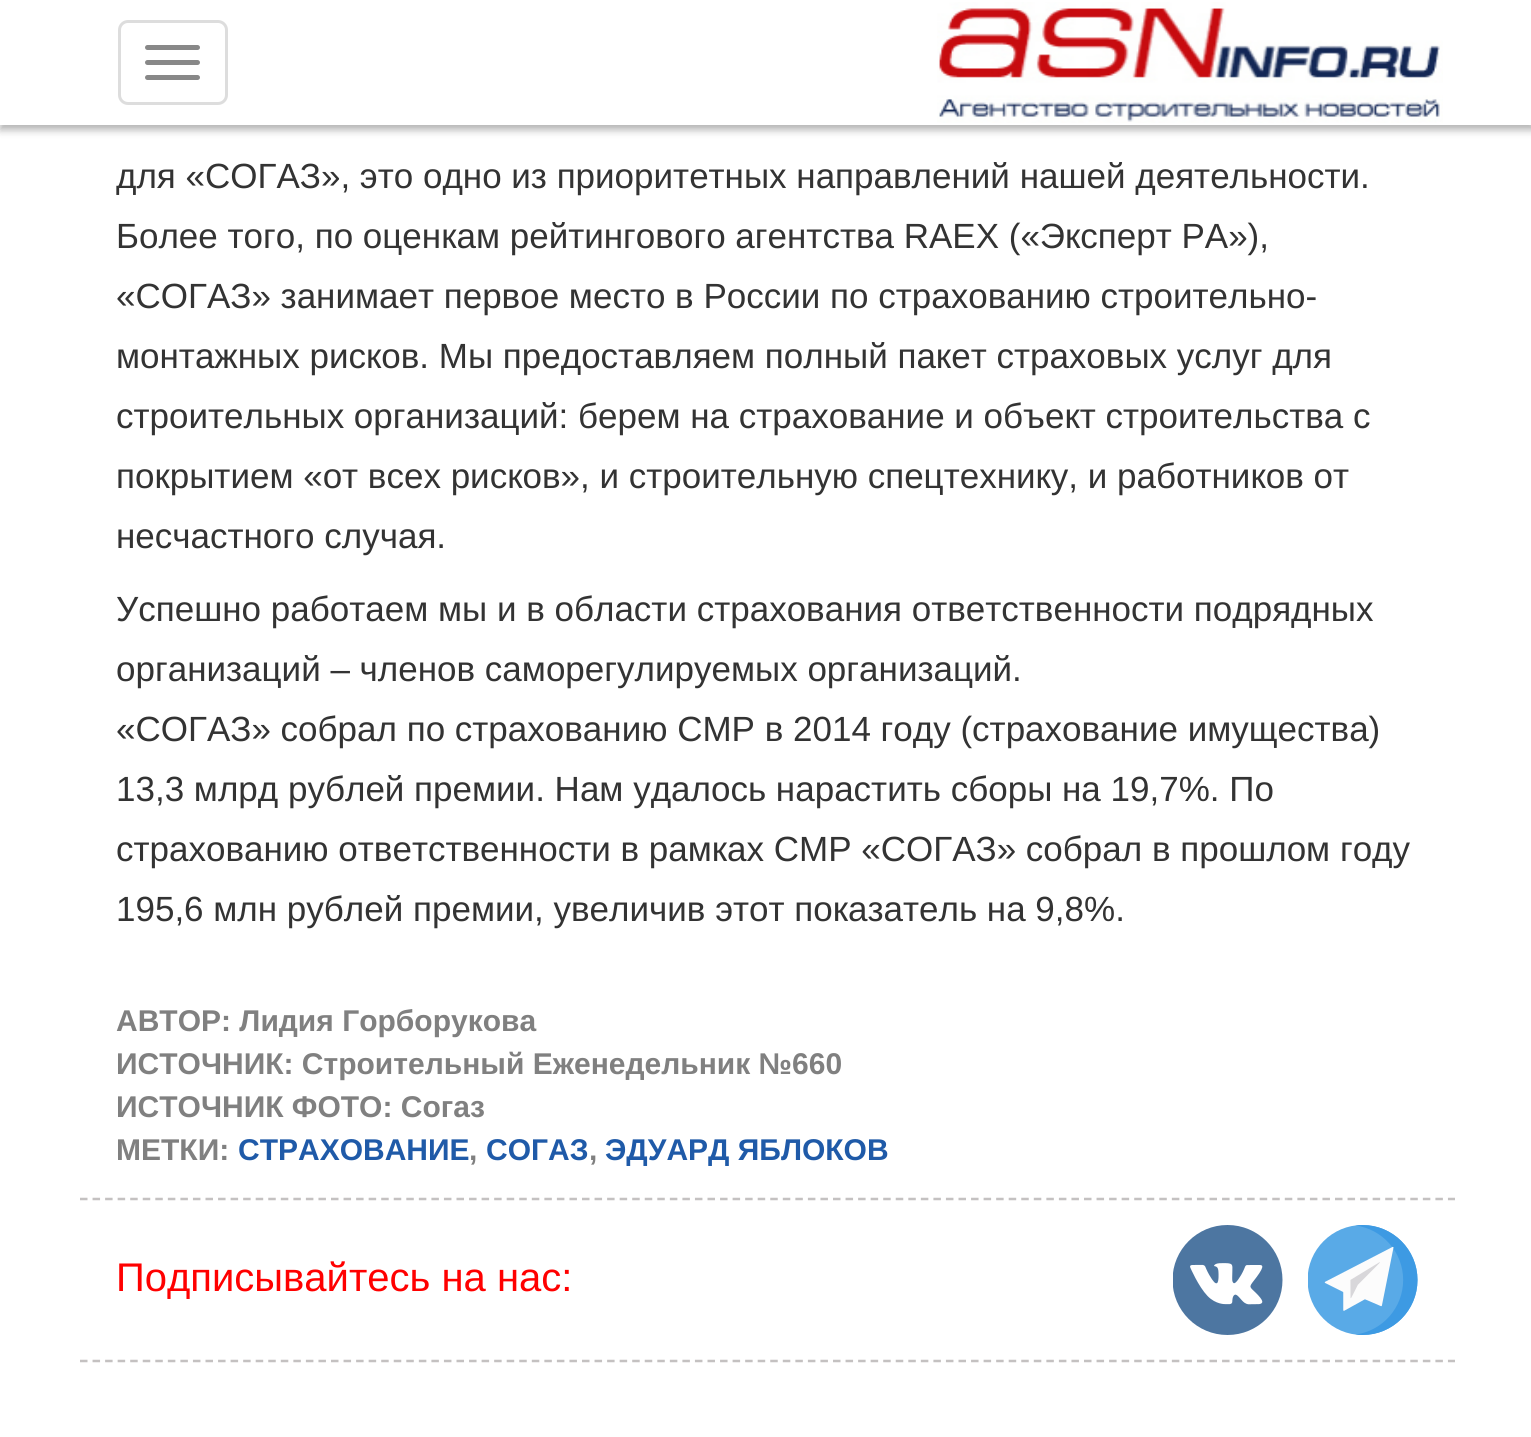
import math
import cairo



def rounded_rect(context, x, y, w, h, r):
    context.new_sub_path()
    for i, (u, v) in enumerate([(x + w - r, y + h - r), (x + r, y + h - r), (x + r, y + r), (x + w - r, y + r)]):
        context.arc(u, v, r, i * math.pi / 2, (i + 1) * math.pi / 2)
    context.close_path()


def draw_shadow(context, x, y, w, h, r, blur, alpha):
    context.push_group_with_content(cairo.Content.ALPHA)
    context.set_operator(cairo.Operator.SOURCE)
    for i in range(15, -16, -2):
        e = blur * i / 6
        if min(w, h) + 2 * e > 0:
            context.set_source_rgba(0, 0, 0, alpha * math.erfc((i - 1) / 8.5) / 2)
            rounded_rect(context, x - e, y - e, w + 2 * e, h + 2 * e, max(0, min(r + e + blur * .6, min(w, h) / 2 + e)))
            context.fill()
    context.mask(context.pop_group())


def draw_image(context, path, x, y, w, h):
    context.save()
    context.set_source_surface(cairo.ImageSurface.create_from_png(path), x, y)
    context.rectangle(x, y, w, h)
    context.fill()
    context.restore()


def draw(context):
    context.set_source_rgb(1, 1, 1)
    context.paint()
    context.set_source_rgb(0, 0, 0)
    draw_shadow(context, 0, 5, 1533, 125, 0, 4, 0.3)
    context.set_source_rgb(1, 1, 1)
    context.rectangle(0, 0, 1531, 125)
    context.fill()
    rounded_rect(context, 119.5, 21.5, 107, 82, 8.5)
    context.set_source_rgb(221 / 255, 221 / 255, 221 / 255)
    context.set_line_width(3)
    context.stroke()
    context.set_source_rgb(136 / 255, 136 / 255, 136 / 255)
    rounded_rect(context, 145, 45, 55, 5, 2.5)
    context.fill()
    rounded_rect(context, 145, 60, 55, 5, 2.5)
    context.fill()
    rounded_rect(context, 145, 75, 55, 5, 2.5)
    context.fill()
    draw_image(context, "images/1.png", 937, 2, 506, 121)
    context.new_path()
    context.move_to(80, 1199)
    context.line_to(1455, 1199)
    context.set_source_rgb(196 / 255, 193 / 255, 193 / 255)
    context.set_line_width(2.5)
    context.set_dash([7.5, 5.05])
    context.stroke()
    draw_image(context, "images/2.png", 1173, 1225, 110, 110)
    draw_image(context, "images/3.png", 1308, 1225, 110, 110)
    context.new_path()
    context.move_to(80, 1361)
    context.line_to(1455, 1361)
    context.stroke()
    context.select_font_face("Liberation Sans")
    context.set_font_size(35)
    context.set_source_rgb(51 / 255, 51 / 255, 51 / 255)
    context.move_to(116, 188)
    context.show_text("для «СОГАЗ», это одно из приоритетных направлений нашей деятельности.")
    context.move_to(116, 248)
    context.show_text("Более того, по оценкам рейтингового агентства RAEX («Экcперт РА»),")
    context.move_to(116, 308)
    context.show_text("«СОГАЗ» занимает первое место в России по страхованию строительно-")
    context.move_to(116, 368)
    context.show_text("монтажных рисков. Мы предоставляем полный пакет страховых услуг для")
    context.move_to(116, 428)
    context.show_text("строительных организаций: берем на страхование и объект строительства с")
    context.move_to(116, 488)
    context.show_text("покрытием «от всех рисков», и строительную спецтехнику, и работников от")
    context.move_to(116, 548)
    context.show_text("несчастного случая.")
    context.move_to(116, 621)
    context.show_text("Успешно работаем мы и в области страхования ответственности подрядных")
    context.move_to(116, 681)
    context.show_text("организаций – членов саморегулируемых организаций.")
    context.move_to(116, 741)
    context.show_text("«СОГАЗ» собрал по страхованию СМР в 2014 году (страхование имущества)")
    context.move_to(116, 801)
    context.show_text("13,3 млрд рублей премии. Нам удалось нарастить сборы на 19,7%. По")
    context.move_to(116, 861)
    context.show_text("страхованию ответственности в рамках СМР «СОГАЗ» собрал в прошлом году")
    context.move_to(116, 921)
    context.show_text("195,6 млн рублей премии, увеличив этот показатель на 9,8%.")
    context.select_font_face("Liberation Sans", cairo.FontSlant.NORMAL, cairo.FontWeight.BOLD)
    context.set_font_size(30)
    context.set_source_rgb(128 / 255, 128 / 255, 128 / 255)
    context.move_to(116, 1031)
    context.show_text("АВТОР: Лидия Горборукова")
    context.move_to(116, 1074)
    context.show_text("ИСТОЧНИК: Строительный Еженедельник №660")
    context.move_to(116, 1117)
    context.show_text("ИСТОЧНИК ФОТО: Согаз")
    context.move_to(116, 1160)
    context.show_text("МЕТКИ:")
    context.set_source_rgb(31 / 255, 90 / 255, 168 / 255)
    context.move_to(238, 1160)
    context.show_text("СТРАХОВАНИЕ")
    context.set_source_rgb(128 / 255, 128 / 255, 128 / 255)
    context.move_to(469, 1160)
    context.show_text(",")
    context.set_source_rgb(31 / 255, 90 / 255, 168 / 255)
    context.move_to(486, 1160)
    context.show_text("СОГАЗ")
    context.set_source_rgb(128 / 255, 128 / 255, 128 / 255)
    context.move_to(589, 1160)
    context.show_text(",")
    context.set_source_rgb(31 / 255, 90 / 255, 168 / 255)
    context.move_to(605, 1160)
    context.show_text("ЭДУАРД ЯБЛОКОВ")
    context.select_font_face("Liberation Sans")
    context.set_font_size(40)
    context.set_source_rgb(1, 0, 0)
    context.move_to(116, 1291)
    context.show_text("Подписывайтесь на нас:")


surface = cairo.ImageSurface(cairo.Format.RGB24, 1531, 1437)
context = cairo.Context(surface)
options = cairo.FontOptions()
options.set_hint_metrics(cairo.HintMetrics.OFF)
options.set_hint_style(cairo.HintStyle.NONE)
context.set_font_options(options)
context.set_miter_limit(4)
draw(context)
surface.write_to_png("out.png")
